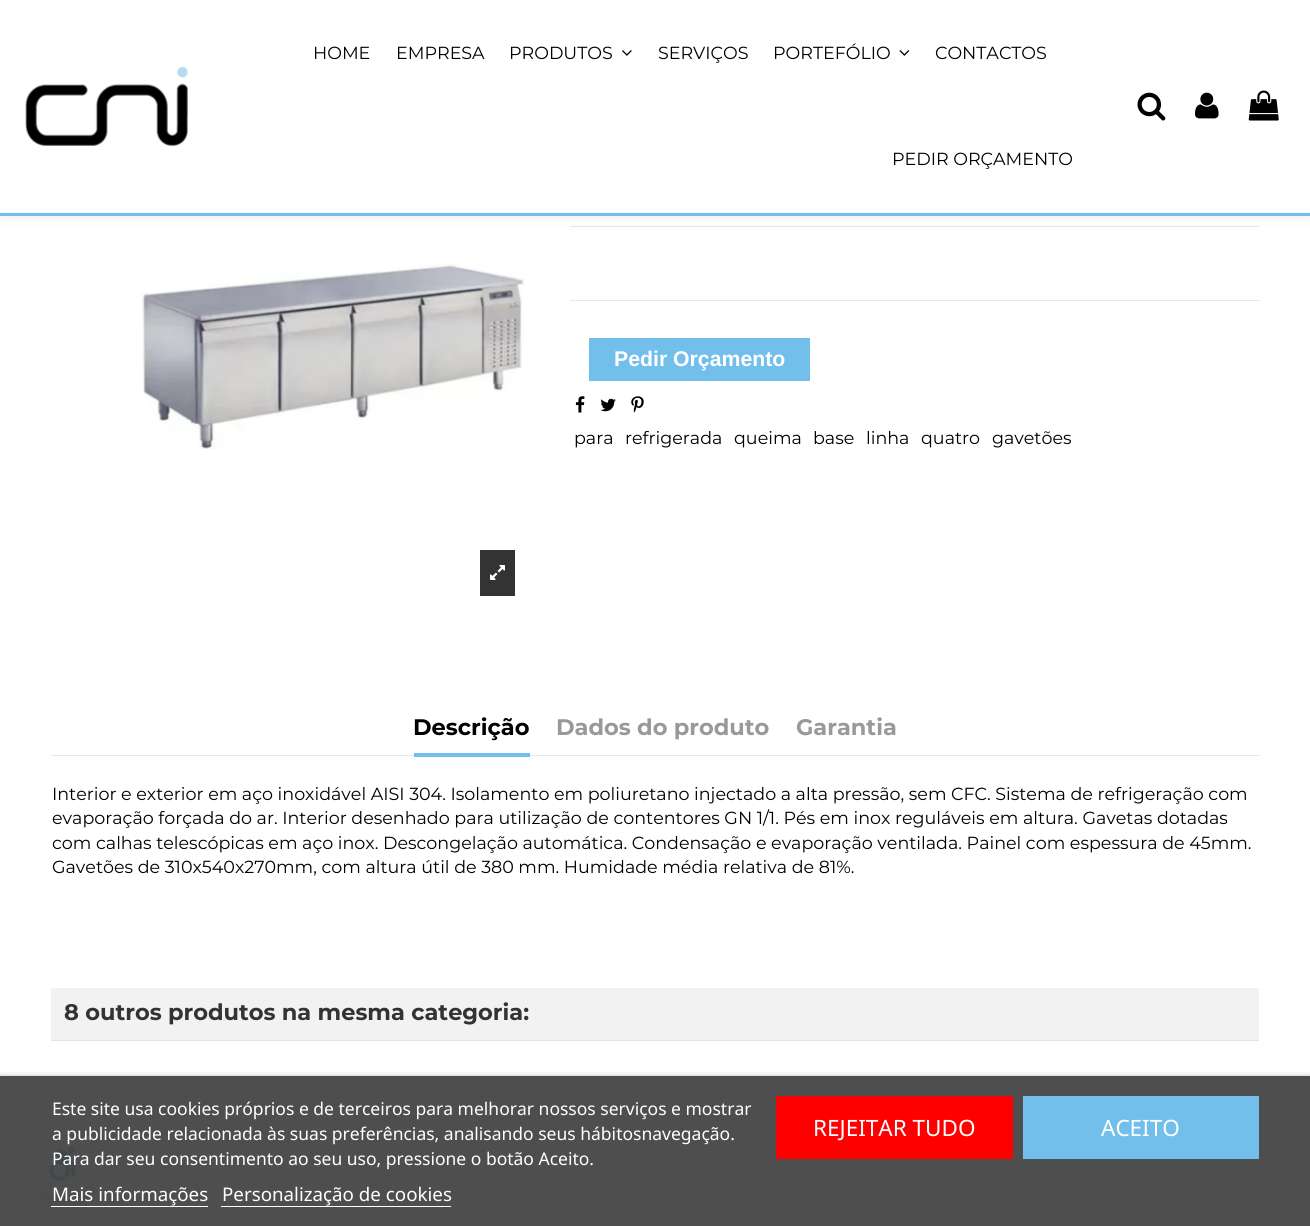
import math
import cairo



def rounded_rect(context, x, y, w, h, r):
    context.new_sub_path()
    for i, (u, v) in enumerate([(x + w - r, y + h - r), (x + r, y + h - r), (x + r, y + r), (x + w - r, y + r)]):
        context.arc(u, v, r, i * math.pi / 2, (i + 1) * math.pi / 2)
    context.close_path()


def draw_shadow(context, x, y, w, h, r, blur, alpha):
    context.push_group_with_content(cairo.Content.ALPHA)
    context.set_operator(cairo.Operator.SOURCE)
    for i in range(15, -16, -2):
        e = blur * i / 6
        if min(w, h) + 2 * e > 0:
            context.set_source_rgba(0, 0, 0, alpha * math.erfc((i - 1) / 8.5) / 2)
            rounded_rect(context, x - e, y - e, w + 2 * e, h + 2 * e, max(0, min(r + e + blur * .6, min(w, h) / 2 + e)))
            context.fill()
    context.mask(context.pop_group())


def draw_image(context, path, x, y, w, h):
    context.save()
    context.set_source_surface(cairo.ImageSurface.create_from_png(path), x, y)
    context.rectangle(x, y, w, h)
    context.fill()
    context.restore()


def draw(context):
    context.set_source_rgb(1, 1, 1)
    context.paint()
    context.set_source_rgb(231 / 255, 231 / 255, 231 / 255)
    context.rectangle(570, 226, 689, 1)
    context.fill()
    context.set_source_rgb(61 / 255, 57 / 255, 57 / 255)
    draw_shadow(context, 0, -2, 1310, 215, 0, 7, 0.17)
    context.set_source_rgb(1, 1, 1)
    context.rectangle(0, 0, 1310, 213)
    context.fill()
    context.set_source_rgb(115 / 255, 191 / 255, 236 / 255)
    context.rectangle(0, 213, 1310, 3)
    context.fill()
    draw_image(context, "images/1.png", 25, 66, 163, 80)
    draw_image(context, "images/2.png", 622, 50, 10, 6)
    draw_image(context, "images/3.png", 899, 50, 11, 6)
    draw_image(context, "images/4.png", 1137, 92, 29, 29)
    draw_image(context, "images/5.png", 1195, 92, 24, 27)
    draw_image(context, "images/6.png", 1248, 90, 31, 31)
    draw_image(context, "images/7.png", 139, 263, 385, 186)
    context.set_source_rgb(51 / 255, 51 / 255, 51 / 255)
    context.rectangle(480, 550, 35, 46)
    context.fill()
    draw_image(context, "images/8.png", 490, 565, 15, 15)
    context.set_source_rgb(231 / 255, 231 / 255, 231 / 255)
    context.rectangle(570, 300, 689, 1)
    context.fill()
    context.set_source_rgb(115 / 255, 191 / 255, 236 / 255)
    context.rectangle(589, 338, 221, 43)
    context.fill()
    draw_image(context, "images/9.png", 575, 396, 10, 17)
    draw_image(context, "images/10.png", 600, 398, 16, 14)
    draw_image(context, "images/11.png", 631, 396, 13, 17)
    context.set_source_rgb(231 / 255, 231 / 255, 231 / 255)
    context.rectangle(51, 755, 1208, 1)
    context.fill()
    context.set_source_rgb(115 / 255, 191 / 255, 236 / 255)
    context.rectangle(414, 753, 116, 4)
    context.fill()
    context.set_source_rgb(242 / 255, 242 / 255, 242 / 255)
    context.rectangle(51, 988, 1208, 52)
    context.fill()
    context.set_source_rgb(227 / 255, 227 / 255, 227 / 255)
    context.rectangle(51, 1040, 1208, 1)
    context.fill()
    context.save()
    context.set_fill_rule(cairo.FillRule.EVEN_ODD)
    context.new_path()
    context.move_to(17, 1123)
    context.line_to(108, 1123)
    context.line_to(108, 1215)
    context.line_to(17, 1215)
    context.close_path()
    context.move_to(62.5, 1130)
    context.curve_to(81, 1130, 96, 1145, 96, 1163.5)
    context.line_to(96, 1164.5)
    context.curve_to(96, 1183, 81, 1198, 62.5, 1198)
    context.curve_to(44, 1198, 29, 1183, 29, 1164.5)
    context.line_to(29, 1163.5)
    context.curve_to(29, 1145, 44, 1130, 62.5, 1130)
    context.close_path()
    context.clip()
    context.set_source_rgb(0, 0, 0)
    draw_shadow(context, 29, 1135, 67, 68, 33.5, 3.5, 0.1)
    context.restore()
    draw_image(context, "images/12.png", 49, 1148, 27, 33)
    context.save()
    context.set_fill_rule(cairo.FillRule.EVEN_ODD)
    context.new_path()
    context.move_to(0, 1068)
    context.line_to(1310, 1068)
    context.line_to(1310, 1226)
    context.line_to(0, 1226)
    context.close_path()
    context.move_to(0, 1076)
    context.line_to(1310, 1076)
    context.line_to(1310, 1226)
    context.line_to(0, 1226)
    context.close_path()
    context.clip()
    context.set_source_rgb(112 / 255, 112 / 255, 112 / 255)
    draw_shadow(context, 0, 1078, 1310, 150, 0, 3, 1)
    context.restore()
    context.set_source_rgba(59 / 255, 59 / 255, 59 / 255, 0.9)
    context.rectangle(0, 1076, 1310, 150)
    context.fill()
    context.set_source_rgb(1, 1, 1)
    context.rectangle(51, 1206, 157, 1)
    context.fill()
    context.rectangle(221, 1206, 230, 1)
    context.fill()
    context.set_source_rgb(1, 0, 0)
    context.rectangle(776, 1096, 237, 63)
    context.fill()
    context.set_source_rgb(115 / 255, 191 / 255, 236 / 255)
    context.rectangle(1023, 1096, 236, 63)
    context.fill()
    context.select_font_face("Montserrat")
    context.set_font_size(17.5)
    context.set_source_rgb(0, 0, 0)
    context.move_to(313, 59)
    context.show_text("HOME")
    context.move_to(396, 59)
    context.show_text("EMPRESA")
    context.move_to(509, 59)
    context.show_text("PRODUTOS")
    context.move_to(658, 59)
    context.show_text("SERVIÇOS")
    context.move_to(773, 59)
    context.show_text("PORTEFÓLIO")
    context.move_to(935, 59)
    context.show_text("CONTACTOS")
    context.move_to(892, 165)
    context.show_text("PEDIR ORÇAMENTO")
    context.select_font_face("Liberation Sans", cairo.FontSlant.NORMAL, cairo.FontWeight.BOLD)
    context.set_font_size(21.25)
    context.set_source_rgb(1, 1, 1)
    context.move_to(614, 366)
    context.show_text("Pedir Orçamento")
    context.select_font_face("Montserrat")
    context.set_font_size(17.5)
    context.set_source_rgb(0, 0, 0)
    context.move_to(574, 444)
    context.show_text("para")
    context.move_to(625, 444)
    context.show_text("refrigerada")
    context.move_to(734, 444)
    context.show_text("queima")
    context.move_to(813, 444)
    context.show_text("base")
    context.move_to(866, 444)
    context.show_text("linha")
    context.move_to(921, 444)
    context.show_text("quatro")
    context.move_to(992, 444)
    context.show_text("gavetões")
    context.select_font_face("Montserrat", cairo.FontSlant.NORMAL, cairo.FontWeight.BOLD)
    context.set_font_size(22.5)
    context.move_to(413, 735)
    context.show_text("Descrição")
    context.set_source_rgb(153 / 255, 153 / 255, 153 / 255)
    context.move_to(556, 735)
    context.show_text("Dados do produto")
    context.move_to(796, 735)
    context.show_text("Garantia")
    context.select_font_face("Montserrat")
    context.set_font_size(17.5)
    context.set_source_rgb(0, 0, 0)
    context.move_to(52, 800)
    context.show_text("Interior e exterior em aço inoxidável AISI 304. Isolamento em poliuretano injectado a alta pressão, sem CFC. Sistema de refrigeração com")
    context.move_to(52, 824)
    context.show_text("evaporação forçada do ar. Interior desenhado para utilização de contentores GN 1/1. Pés em inox reguláveis em altura. Gavetas dotadas")
    context.move_to(52, 849)
    context.show_text("com calhas telescópicas em aço inox. Descongelação automática. Condensação e evaporação ventilada. Painel com espessura de 45mm.")
    context.move_to(52, 873)
    context.show_text("Gavetões de 310x540x270mm, com altura útil de 380 mm. Humidade média relativa de 81%.")
    context.select_font_face("Montserrat", cairo.FontSlant.NORMAL, cairo.FontWeight.BOLD)
    context.set_font_size(22.5)
    context.set_source_rgb(51 / 255, 51 / 255, 51 / 255)
    context.move_to(64, 1020)
    context.show_text("8 outros produtos na mesma categoria:")
    context.select_font_face("Noto Sans")
    context.set_font_size(17.5)
    context.set_source_rgb(1, 1, 1)
    context.move_to(52, 1115)
    context.show_text("Este site usa cookies próprios e de terceiros para melhorar nossos serviços e mostrar")
    context.move_to(52, 1140)
    context.show_text("a publicidade relacionada às suas preferências, analisando seus hábitosnavegação.")
    context.move_to(52, 1165)
    context.show_text("Para dar seu consentimento ao seu uso, pressione o botão Aceito.")
    context.set_font_size(18.75)
    context.move_to(52, 1201)
    context.show_text("Mais informações")
    context.move_to(222, 1201)
    context.show_text("Personalização de cookies")
    context.set_font_size(22.5)
    context.move_to(813, 1136)
    context.show_text("REJEITAR TUDO")
    context.move_to(1101, 1136)
    context.show_text("ACEITO")


surface = cairo.ImageSurface(cairo.Format.RGB24, 1310, 1226)
context = cairo.Context(surface)
options = cairo.FontOptions()
options.set_hint_metrics(cairo.HintMetrics.OFF)
options.set_hint_style(cairo.HintStyle.NONE)
context.set_font_options(options)
context.set_miter_limit(4)
draw(context)
surface.write_to_png("out.png")
